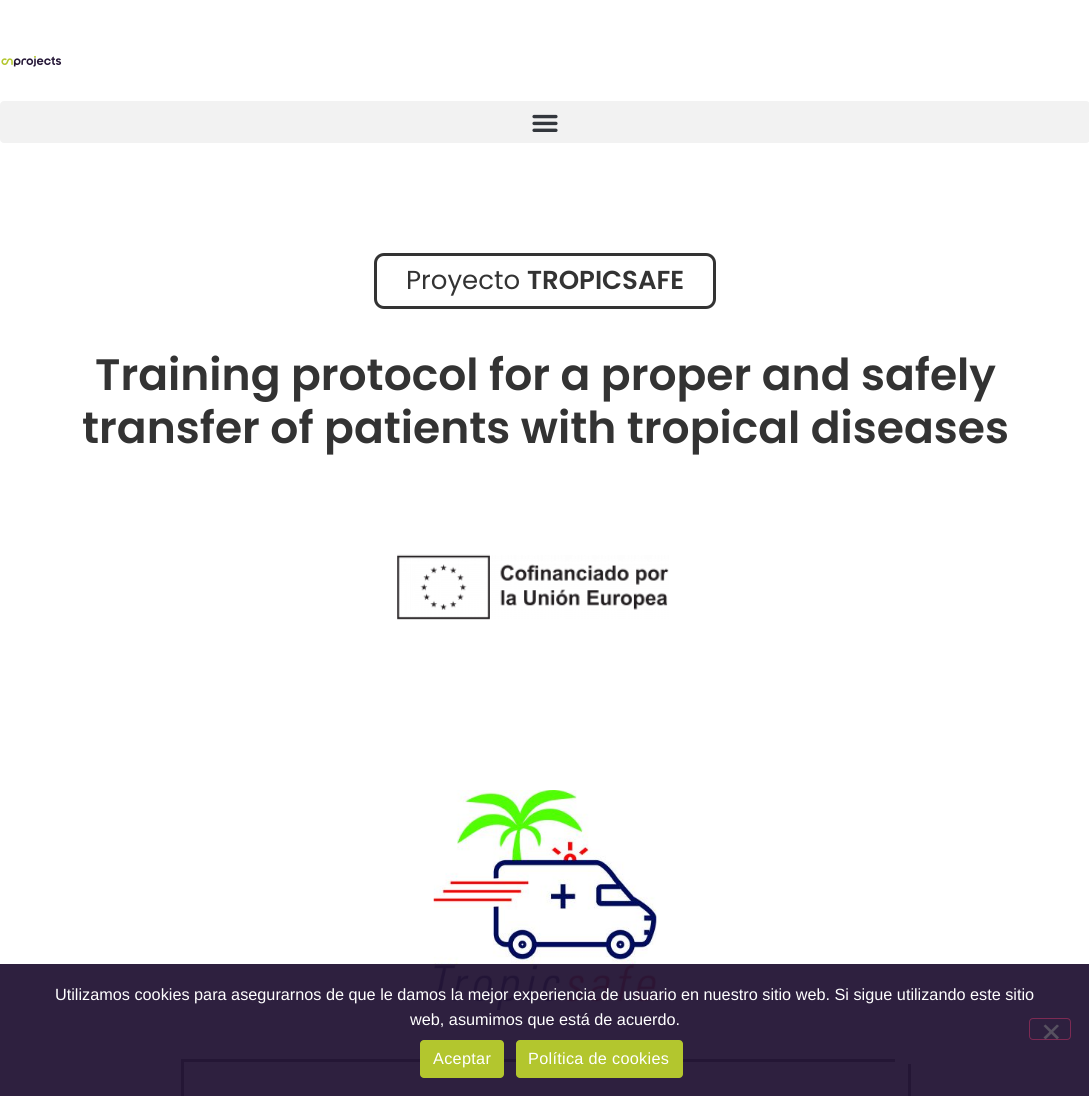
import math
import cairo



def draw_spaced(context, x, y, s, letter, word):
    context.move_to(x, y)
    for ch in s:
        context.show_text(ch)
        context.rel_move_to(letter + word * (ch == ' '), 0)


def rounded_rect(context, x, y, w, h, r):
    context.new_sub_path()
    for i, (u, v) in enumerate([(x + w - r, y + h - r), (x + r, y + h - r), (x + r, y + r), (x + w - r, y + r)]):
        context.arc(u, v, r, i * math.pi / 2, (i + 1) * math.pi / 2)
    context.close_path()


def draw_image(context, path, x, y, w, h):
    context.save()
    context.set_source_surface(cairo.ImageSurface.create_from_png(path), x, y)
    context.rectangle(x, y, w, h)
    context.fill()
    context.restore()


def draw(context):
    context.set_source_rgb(1, 1, 1)
    context.paint()
    draw_image(context, "images/1.png", 1, 55, 61, 12)
    context.set_source_rgb(242 / 255, 242 / 255, 242 / 255)
    rounded_rect(context, 0, 101, 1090, 42, 4)
    context.fill()
    draw_image(context, "images/2.png", 532, 114, 26, 18)
    rounded_rect(context, 375.5, 254.5, 339, 53, 8.5)
    context.set_source_rgb(51 / 255, 51 / 255, 51 / 255)
    context.set_line_width(3)
    context.stroke()
    draw_image(context, "images/3.png", 397, 554, 272, 66)
    draw_image(context, "images/4.png", 433, 790, 224, 220)
    context.rectangle(181, 1059, 714, 3)
    context.fill()
    context.rectangle(181, 1059, 3, 37)
    context.fill()
    context.rectangle(908, 1064, 3, 32)
    context.fill()
    context.set_source_rgba(36 / 255, 22 / 255, 54 / 255, 0.95)
    context.rectangle(0, 964, 1089, 132)
    context.fill()
    rounded_rect(context, 1029.5, 1018.5, 41, 21, 3.5)
    context.set_source_rgb(125 / 255, 42 / 255, 83 / 255)
    context.set_line_width(1)
    context.stroke()
    context.set_source_rgb(87 / 255, 81 / 255, 96 / 255)
    context.new_path()
    context.move_to(1057, 1024.5)
    context.line_to(1059, 1026)
    context.line_to(1045.5, 1039.5)
    context.line_to(1043.5, 1037.5)
    context.close_path()
    context.fill()
    context.new_path()
    context.move_to(1043.5, 1026)
    context.line_to(1045.5, 1024.5)
    context.line_to(1059, 1037.5)
    context.line_to(1057, 1039.5)
    context.close_path()
    context.fill()
    context.set_source_rgb(179 / 255, 198 / 255, 46 / 255)
    rounded_rect(context, 420, 1040, 84, 38, 4)
    context.fill()
    rounded_rect(context, 516, 1040, 167, 38, 4)
    context.fill()
    context.select_font_face("Poppins")
    context.set_font_size(26)
    context.set_source_rgb(51 / 255, 51 / 255, 51 / 255)
    context.move_to(406, 289)
    context.show_text("Proyecto")
    context.select_font_face("Poppins SemiBold")
    context.move_to(527, 289)
    context.show_text("TROPICSAFE")
    context.set_font_size(44)
    context.move_to(95, 390)
    context.show_text("Training protocol for a proper and safely")
    context.move_to(82, 443)
    context.show_text("transfer of patients with tropical diseases")
    context.select_font_face("Liberation Sans")
    context.set_font_size(16.25)
    context.set_source_rgb(1, 1, 1)
    context.move_to(55, 1000)
    context.show_text("Utilizamos cookies para asegurarnos de que le damos la mejor experiencia de usuario en nuestro sitio web. Si sigue utilizando este sitio")
    context.move_to(410, 1025)
    context.show_text("web, asumimos que está de acuerdo.")
    draw_spaced(context, 433, 1064, "Aceptar", 0.3, 0)
    draw_spaced(context, 528, 1064, "Política de cookies", 0.3, 0)


surface = cairo.ImageSurface(cairo.Format.RGB24, 1089, 1096)
context = cairo.Context(surface)
options = cairo.FontOptions()
options.set_hint_metrics(cairo.HintMetrics.OFF)
options.set_hint_style(cairo.HintStyle.NONE)
context.set_font_options(options)
context.set_miter_limit(4)
draw(context)
surface.write_to_png("out.png")
